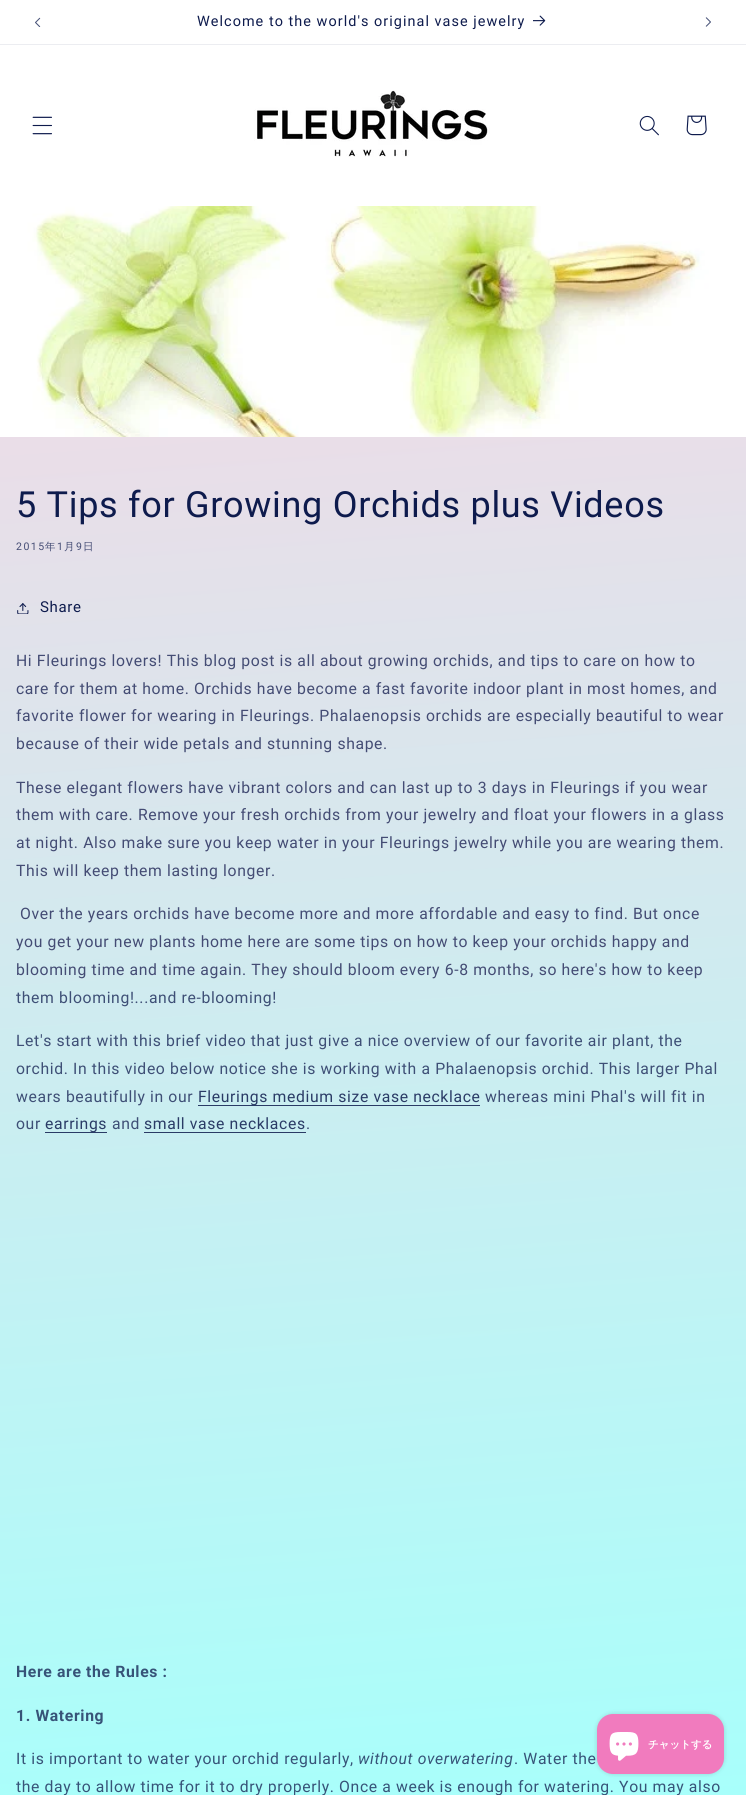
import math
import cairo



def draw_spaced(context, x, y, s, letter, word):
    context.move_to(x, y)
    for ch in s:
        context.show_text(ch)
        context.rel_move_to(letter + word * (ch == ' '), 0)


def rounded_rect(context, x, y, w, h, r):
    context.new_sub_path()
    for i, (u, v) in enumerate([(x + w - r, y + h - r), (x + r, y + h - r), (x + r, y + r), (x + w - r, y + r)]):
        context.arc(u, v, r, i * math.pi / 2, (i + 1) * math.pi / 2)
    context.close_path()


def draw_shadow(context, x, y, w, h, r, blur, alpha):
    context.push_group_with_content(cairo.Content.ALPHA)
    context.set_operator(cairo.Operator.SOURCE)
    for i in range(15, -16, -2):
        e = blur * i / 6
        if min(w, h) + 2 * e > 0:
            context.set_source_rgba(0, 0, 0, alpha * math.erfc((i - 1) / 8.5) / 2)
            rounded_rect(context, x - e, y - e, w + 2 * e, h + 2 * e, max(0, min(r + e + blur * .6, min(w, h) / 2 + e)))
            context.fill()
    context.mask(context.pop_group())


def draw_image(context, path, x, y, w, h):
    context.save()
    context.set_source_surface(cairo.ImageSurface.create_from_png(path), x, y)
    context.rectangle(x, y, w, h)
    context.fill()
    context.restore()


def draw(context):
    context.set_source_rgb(1, 1, 1)
    context.paint()
    gradient = cairo.LinearGradient(309, -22, 437, 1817)
    gradient.add_color_stop_rgba(0, 1, 211 / 255, 226 / 255, 1)
    gradient.add_color_stop_rgba(1, 168 / 255, 1, 251 / 255, 1)
    context.set_source(gradient)
    context.rectangle(0, 437, 746, 1358)
    context.fill()
    context.set_source_rgb(236 / 255, 237 / 255, 241 / 255)
    context.rectangle(0, 44, 746, 1)
    context.fill()
    draw_image(context, "images/1.png", 35, 17, 6, 10)
    draw_image(context, "images/2.png", 533, 15, 13, 11)
    draw_image(context, "images/3.png", 705, 17, 6, 10)
    draw_image(context, "images/4.png", 32, 116, 20, 19)
    draw_image(context, "images/5.png", 254, 90, 236, 67)
    draw_image(context, "images/6.png", 639, 115, 20, 21)
    draw_image(context, "images/7.png", 686, 115, 21, 21)
    draw_image(context, "images/8.png", 0, 206, 746, 231)
    draw_image(context, "images/9.png", 17, 603, 12, 11)
    context.set_source_rgb(42 / 255, 59 / 255, 102 / 255)
    context.rectangle(198, 1105, 282, 1)
    context.fill()
    context.rectangle(45, 1132, 62, 1)
    context.fill()
    context.rectangle(144, 1132, 162, 1)
    context.fill()
    context.set_source_rgb(0, 0, 0)
    draw_shadow(context, 597, 1714, 127, 60, 16, 2.5, 0.15)
    context.set_source_rgb(241 / 255, 123 / 255, 190 / 255)
    rounded_rect(context, 597, 1714, 127, 60, 16)
    context.fill()
    draw_image(context, "images/10.png", 609, 1732, 30, 29)
    context.select_font_face("Roboto")
    context.set_font_size(14.4)
    context.set_source_rgb(14 / 255, 27 / 255, 77 / 255)
    draw_spaced(context, 197, 26, "Welcome to the world's original vase jewelry", 1.05, 0)
    context.set_font_size(36)
    draw_spaced(context, 16, 517, "5 Tips for Growing Orchids plus Videos", 0.7, 0)
    context.set_font_size(10.5)
    context.set_source_rgb(68 / 255, 76 / 255, 116 / 255)
    draw_spaced(context, 16, 550, "2015", 1.5, 0)
    context.select_font_face("WenQuanYi Zen Hei Medium")
    draw_spaced(context, 45, 550, "年", 1.5, 0)
    context.select_font_face("Roboto")
    draw_spaced(context, 57, 550, "1", 1.5, 0)
    context.select_font_face("WenQuanYi Zen Hei Medium")
    draw_spaced(context, 64, 550, "月", 1.5, 0)
    context.select_font_face("Roboto")
    draw_spaced(context, 76, 550, "9", 1.5, 0)
    context.select_font_face("WenQuanYi Zen Hei Medium")
    draw_spaced(context, 83, 550, "日", 1.5, 0)
    context.select_font_face("Roboto")
    context.set_font_size(15)
    context.set_source_rgb(14 / 255, 27 / 255, 77 / 255)
    draw_spaced(context, 40, 612, "Share", 0.63, 0)
    context.set_font_size(15.75)
    context.set_source_rgb(68 / 255, 76 / 255, 116 / 255)
    draw_spaced(context, 16, 666, "Hi Fleurings lovers! This blog post is all about growing orchids, and tips to care on how to", 0.63, 0)
    draw_spaced(context, 16, 694, "care for them at home. Orchids have become a fast favorite indoor plant in most homes, and", 0.63, 0)
    draw_spaced(context, 16, 721, "favorite flower for wearing in Fleurings. Phalaenopsis orchids are especially beautiful to wear", 0.63, 0)
    draw_spaced(context, 16, 749, "because of their wide petals and stunning shape.", 0.63, 0)
    draw_spaced(context, 16, 793, "These elegant flowers have vibrant colors and can last up to 3 days in Fleurings if you wear", 0.63, 0)
    draw_spaced(context, 16, 820, "them with care. Remove your fresh orchids from your jewelry and float your flowers in a glass", 0.63, 0)
    draw_spaced(context, 16, 848, "at night. Also make sure you keep water in your Fleurings jewelry while you are wearing them.", 0.63, 0)
    draw_spaced(context, 16, 876, "This will keep them lasting longer.", 0.63, 0)
    draw_spaced(context, 20, 919, "Over the years orchids have become more and more affordable and easy to find. But once", 0.63, 0)
    draw_spaced(context, 16, 947, "you get your new plants home here are some tips on how to keep your orchids happy and", 0.63, 0)
    draw_spaced(context, 16, 975, "blooming time and time again. They should bloom every 6-8 months, so here's how to keep", 0.63, 0)
    context.set_source_rgb(62 / 255, 79 / 255, 118 / 255)
    draw_spaced(context, 16, 1003, "them blooming!...and re-blooming!", 0.63, 0)
    draw_spaced(context, 16, 1046, "Let's start with this brief video that just give a nice overview of our favorite air plant, the", 0.63, 0)
    draw_spaced(context, 16, 1074, "orchid. In this video below notice she is working with a Phalaenopsis orchid. This larger Phal", 0.63, 0)
    draw_spaced(context, 16, 1102, "wears beautifully in our", 0.63, 0)
    context.set_source_rgb(42 / 255, 59 / 255, 102 / 255)
    draw_spaced(context, 198, 1102, "Fleurings medium size vase necklace", 0.63, 0)
    context.set_source_rgb(62 / 255, 79 / 255, 118 / 255)
    draw_spaced(context, 485, 1102, "whereas mini Phal's will fit in", 0.63, 0)
    draw_spaced(context, 16, 1129, "our", 0.63, 0)
    context.set_source_rgb(42 / 255, 59 / 255, 102 / 255)
    draw_spaced(context, 45, 1129, "earrings", 0.63, 0)
    context.set_source_rgb(62 / 255, 79 / 255, 118 / 255)
    draw_spaced(context, 112, 1129, "and", 0.63, 0)
    context.set_source_rgb(42 / 255, 59 / 255, 102 / 255)
    draw_spaced(context, 144, 1129, "small vase necklaces", 0.63, 0)
    context.set_source_rgb(62 / 255, 79 / 255, 118 / 255)
    draw_spaced(context, 306, 1129, ".", 0.63, 0)
    context.select_font_face("Roboto", cairo.FontSlant.NORMAL, cairo.FontWeight.BOLD)
    context.set_source_rgb(55 / 255, 83 / 255, 120 / 255)
    draw_spaced(context, 16, 1677, "Here are the Rules :", 0.63, 0)
    draw_spaced(context, 16, 1721, "1. Watering", 0.63, 0)
    context.select_font_face("Roboto")
    draw_spaced(context, 16, 1764, "It is important to water your orchid regularly,", 0.63, 0)
    context.select_font_face("Roboto", cairo.FontSlant.ITALIC)
    draw_spaced(context, 358, 1764, "without overwatering", 0.63, 0)
    context.select_font_face("Roboto")
    draw_spaced(context, 514, 1764, ". Water the", 0.63, 0)
    draw_spaced(context, 16, 1792, "the day to allow time for it to dry properly. Once a week is enough for watering. You may also", 0.63, 0)
    context.select_font_face("WenQuanYi Zen Hei", cairo.FontSlant.NORMAL, cairo.FontWeight.BOLD)
    context.set_font_size(10.5)
    context.set_source_rgb(1, 1, 1)
    context.move_to(648, 1748)
    context.show_text("チャットする")


surface = cairo.ImageSurface(cairo.Format.RGB24, 746, 1795)
context = cairo.Context(surface)
options = cairo.FontOptions()
options.set_hint_metrics(cairo.HintMetrics.OFF)
options.set_hint_style(cairo.HintStyle.NONE)
context.set_font_options(options)
context.set_miter_limit(4)
draw(context)
surface.write_to_png("out.png")
